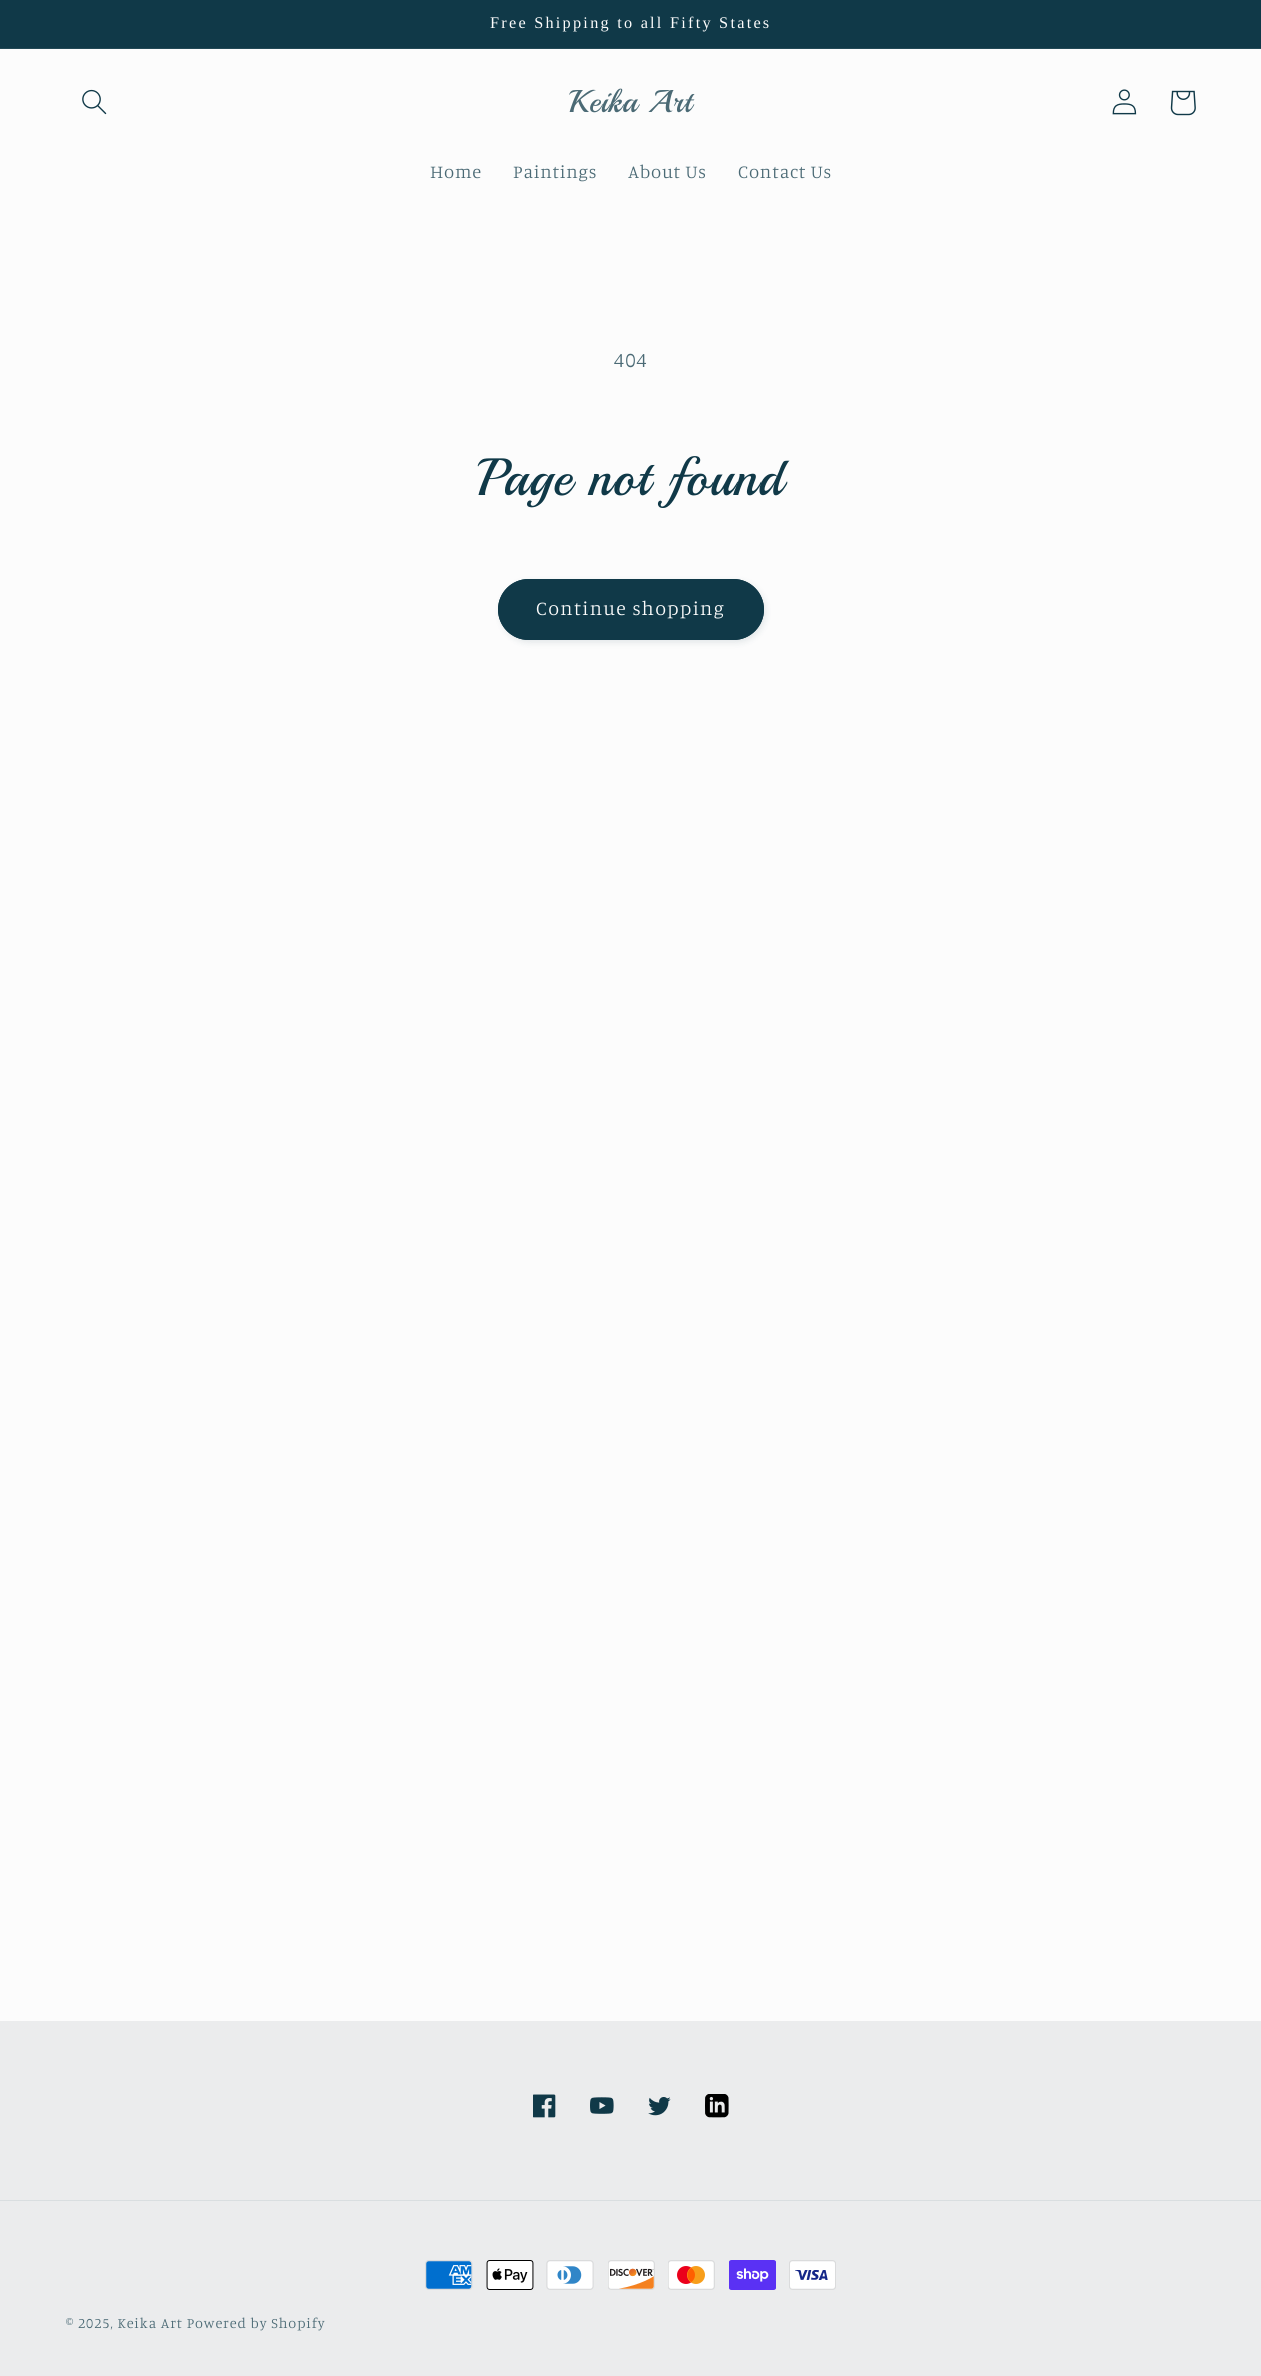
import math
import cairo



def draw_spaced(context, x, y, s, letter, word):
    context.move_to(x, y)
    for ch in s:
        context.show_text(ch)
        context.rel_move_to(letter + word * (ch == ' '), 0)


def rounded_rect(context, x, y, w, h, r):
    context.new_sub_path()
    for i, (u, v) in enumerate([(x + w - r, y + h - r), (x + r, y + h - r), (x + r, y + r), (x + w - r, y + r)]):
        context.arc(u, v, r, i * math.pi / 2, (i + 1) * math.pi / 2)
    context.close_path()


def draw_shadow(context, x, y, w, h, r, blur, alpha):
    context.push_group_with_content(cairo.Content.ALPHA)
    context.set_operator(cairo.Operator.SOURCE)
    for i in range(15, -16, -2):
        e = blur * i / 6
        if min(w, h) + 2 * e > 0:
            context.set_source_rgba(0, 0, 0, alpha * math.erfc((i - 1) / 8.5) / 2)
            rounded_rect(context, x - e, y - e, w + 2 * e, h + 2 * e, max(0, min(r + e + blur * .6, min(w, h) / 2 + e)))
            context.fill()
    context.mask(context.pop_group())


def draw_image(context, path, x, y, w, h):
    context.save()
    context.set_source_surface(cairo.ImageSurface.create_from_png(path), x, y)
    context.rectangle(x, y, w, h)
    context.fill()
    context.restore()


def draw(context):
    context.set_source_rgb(252 / 255, 252 / 255, 252 / 255)
    context.paint()
    context.set_source_rgb(16 / 255, 57 / 255, 72 / 255)
    context.rectangle(0, 0, 1261, 48)
    context.fill()
    context.set_source_rgb(35 / 255, 73 / 255, 86 / 255)
    context.rectangle(0, 48, 1261, 1)
    context.fill()
    draw_image(context, "images/1.png", 82, 89, 25, 26)
    draw_image(context, "images/2.png", 1112, 89, 25, 26)
    draw_image(context, "images/3.png", 1170, 90, 26, 26)
    context.set_source_rgb(16 / 255, 57 / 255, 72 / 255)
    draw_shadow(context, 500, 581, 266, 62, 31, 3, 0.1)
    context.set_source_rgb(16 / 255, 57 / 255, 72 / 255)
    rounded_rect(context, 498, 579, 266, 61, 30.5)
    context.fill()
    rounded_rect(context, 498.5, 579.5, 265, 60, 30)
    context.set_line_width(1)
    context.stroke()
    context.set_source_rgb(235 / 255, 236 / 255, 237 / 255)
    context.rectangle(0, 2021, 1261, 355)
    context.fill()
    draw_image(context, "images/4.png", 533, 2094, 23, 24)
    draw_image(context, "images/5.png", 590, 2097, 24, 17)
    draw_image(context, "images/6.png", 648, 2097, 23, 19)
    draw_image(context, "images/7.png", 705, 2094, 24, 24)
    context.set_source_rgb(217 / 255, 222 / 255, 224 / 255)
    context.rectangle(0, 2200, 1261, 1)
    context.fill()
    draw_image(context, "images/8.png", 425, 2260, 48, 30)
    draw_image(context, "images/9.png", 486, 2260, 48, 30)
    draw_image(context, "images/10.png", 546, 2260, 48, 30)
    draw_image(context, "images/11.png", 608, 2260, 47, 30)
    draw_image(context, "images/12.png", 668, 2260, 47, 30)
    draw_image(context, "images/13.png", 729, 2260, 47, 30)
    draw_image(context, "images/14.png", 789, 2260, 47, 30)
    context.select_font_face("Liberation Serif")
    context.set_font_size(16.25)
    context.set_source_rgb(252 / 255, 252 / 255, 252 / 255)
    draw_spaced(context, 490, 28, "Free Shipping to all Fifty States", 2.25, 0)
    context.select_font_face("Playball")
    context.set_font_size(31.5)
    context.set_source_rgb(75 / 255, 106 / 255, 117 / 255)
    draw_spaced(context, 568, 112, "Keika Art", 0.75, 0)
    context.select_font_face("Manuale Light")
    context.set_font_size(18.5)
    draw_spaced(context, 430, 178, "Home", 0.75, 0)
    draw_spaced(context, 513, 178, "Paintings", 0.75, 0)
    draw_spaced(context, 628, 178, "About Us", 0.75, 0)
    draw_spaced(context, 738, 178, "Contact Us", 0.75, 0)
    context.set_font_size(21)
    draw_spaced(context, 614, 367, "404", 0.75, 0)
    context.select_font_face("Playball")
    context.set_font_size(52.5)
    context.set_source_rgb(16 / 255, 57 / 255, 72 / 255)
    draw_spaced(context, 477, 495, "Page not found", 0.75, 0)
    context.select_font_face("Manuale Light")
    context.set_font_size(19.75)
    context.set_source_rgb(252 / 255, 252 / 255, 252 / 255)
    draw_spaced(context, 536, 615, "Continue shopping", 1.3, 0)
    context.set_font_size(14.4)
    context.set_source_rgb(75 / 255, 106 / 255, 117 / 255)
    draw_spaced(context, 66, 2328, "© 2025, Keika Art Powered by Shopify", 0.9, 0)


surface = cairo.ImageSurface(cairo.Format.RGB24, 1261, 2376)
context = cairo.Context(surface)
options = cairo.FontOptions()
options.set_hint_metrics(cairo.HintMetrics.OFF)
options.set_hint_style(cairo.HintStyle.NONE)
context.set_font_options(options)
context.set_miter_limit(4)
draw(context)
surface.write_to_png("out.png")
